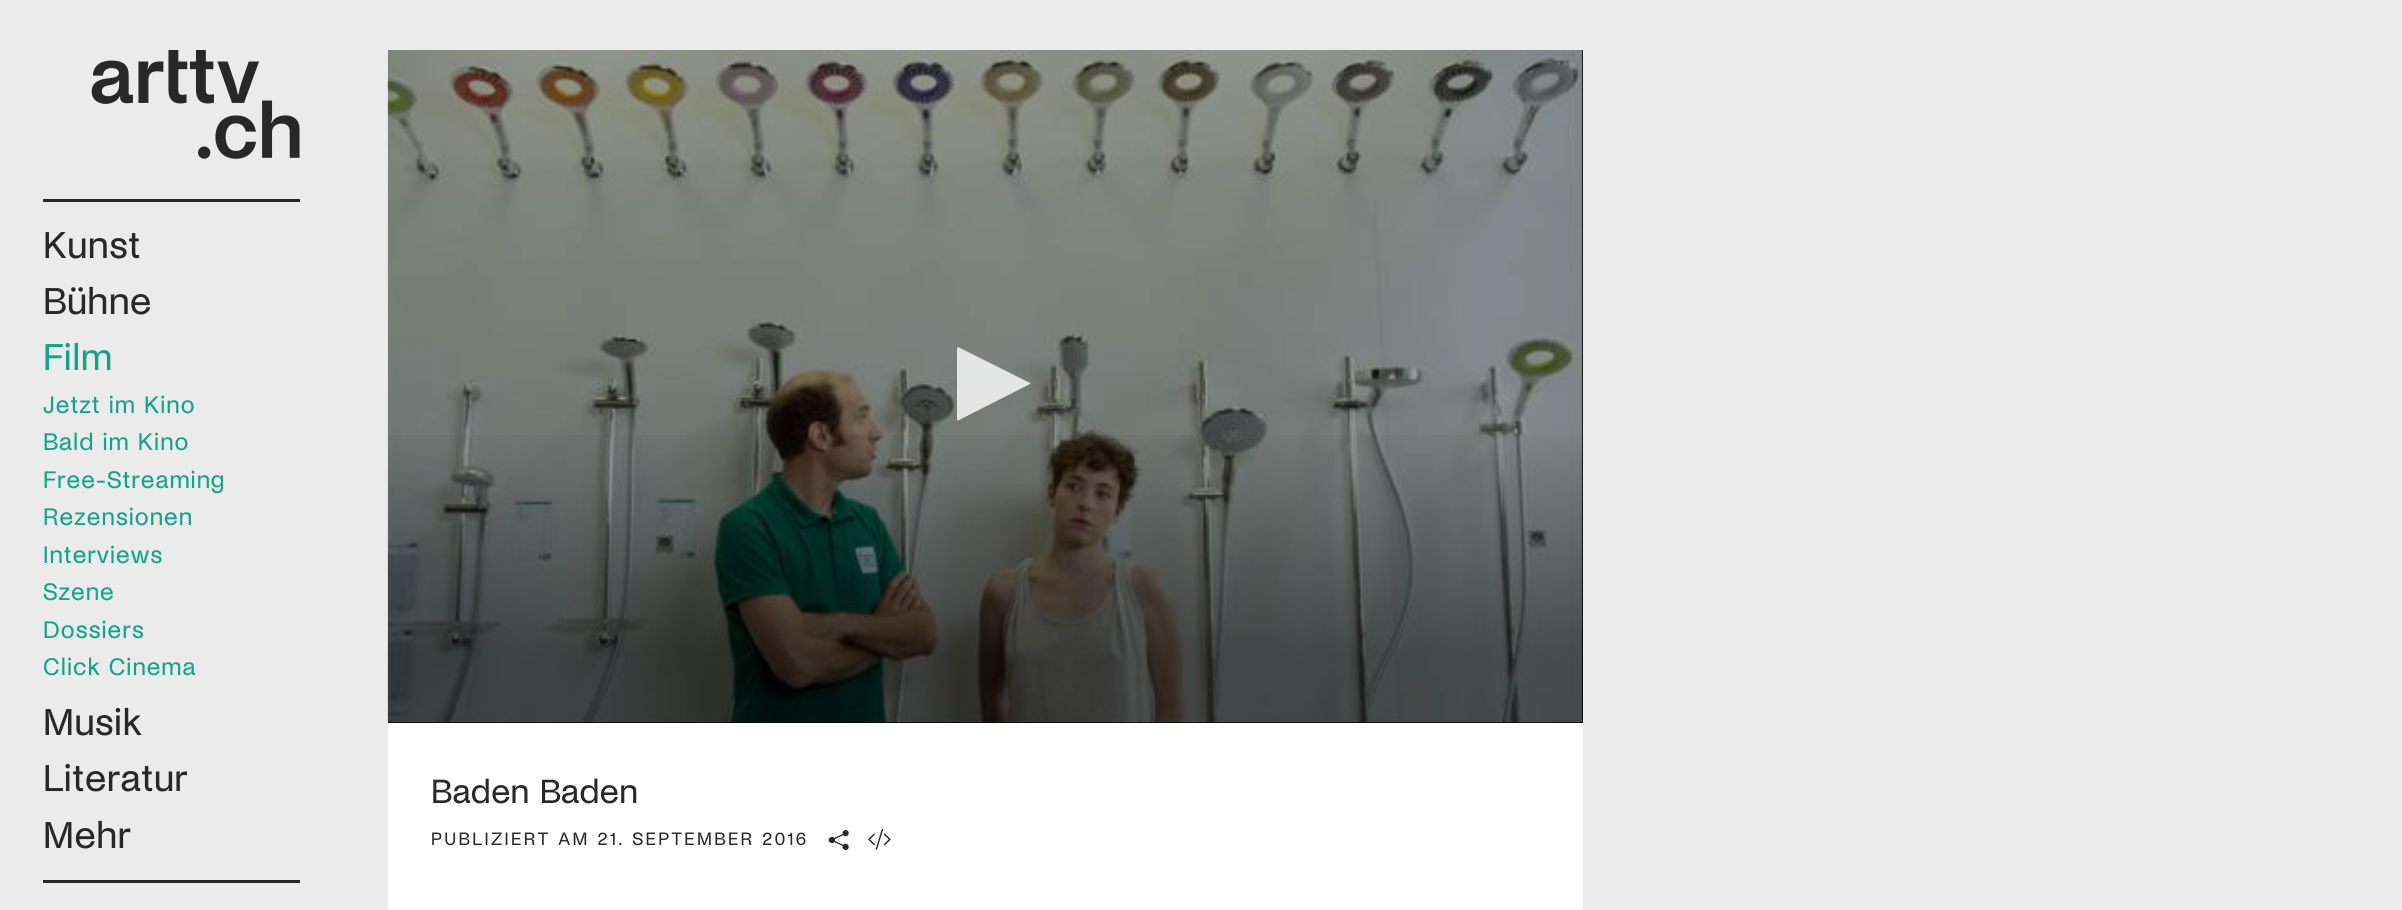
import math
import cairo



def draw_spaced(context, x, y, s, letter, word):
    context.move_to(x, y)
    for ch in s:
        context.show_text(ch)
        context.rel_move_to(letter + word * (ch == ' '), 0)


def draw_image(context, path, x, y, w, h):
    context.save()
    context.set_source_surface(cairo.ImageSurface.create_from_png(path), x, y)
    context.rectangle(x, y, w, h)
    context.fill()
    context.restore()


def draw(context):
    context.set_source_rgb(235 / 255, 235 / 255, 235 / 255)
    context.paint()
    context.set_source_rgb(40 / 255, 40 / 255, 40 / 255)
    context.rectangle(43, 199, 257, 3)
    context.fill()
    draw_image(context, "images/1.png", 91, 50, 209, 109)
    context.rectangle(43, 880, 257, 3)
    context.fill()
    context.set_source_rgb(0, 0, 0)
    context.rectangle(388, 50, 1195, 673)
    context.fill()
    draw_image(context, "images/2.png", 387, 50, 1196, 673)
    context.set_source_rgba(1, 1, 1, 0.8)
    context.new_path()
    context.move_to(959, 420)
    context.curve_to(958, 421, 957, 420, 957, 420)
    context.line_to(957, 348)
    context.line_to(958, 347)
    context.line_to(1030, 383)
    context.curve_to(1030, 383, 1031, 384, 1030, 384)
    context.close_path()
    context.fill()
    gradient = cairo.LinearGradient(985, 422, 985, 723)
    gradient.add_color_stop_rgba(0, 0, 0, 0, 0)
    gradient.add_color_stop_rgba(0.77, 0, 0, 0, 0.4)
    gradient.add_color_stop_rgba(1, 0, 0, 0, 0.4)
    context.set_source(gradient)
    context.rectangle(388, 435, 1195, 288)
    context.fill()
    context.set_source_rgb(1, 1, 1)
    context.rectangle(388, 723, 1195, 187)
    context.fill()
    draw_image(context, "images/3.png", 828, 830, 21, 20)
    draw_image(context, "images/4.png", 868, 829, 23, 21)
    context.select_font_face("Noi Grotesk")
    context.set_font_size(39)
    context.set_source_rgb(40 / 255, 40 / 255, 40 / 255)
    draw_spaced(context, 43, 258, "Kunst", 0.5, 0)
    draw_spaced(context, 43, 314, "Bühne", 0.5, 0)
    context.set_source_rgb(19 / 255, 164 / 255, 136 / 255)
    draw_spaced(context, 43, 370, "Film", 0.5, 0)
    context.set_font_size(25)
    draw_spaced(context, 43, 413, "Jetzt im Kino", 1, 0)
    draw_spaced(context, 43, 450, "Bald im Kino", 1, 0)
    draw_spaced(context, 43, 488, "Free-Streaming", 1, 0)
    draw_spaced(context, 43, 525, "Rezensionen", 1, 0)
    draw_spaced(context, 43, 563, "Interviews", 1, 0)
    draw_spaced(context, 43, 600, "Szene", 1, 0)
    draw_spaced(context, 43, 638, "Dossiers", 1, 0)
    draw_spaced(context, 43, 675, "Click Cinema", 1, 0)
    context.set_font_size(39)
    context.set_source_rgb(40 / 255, 40 / 255, 40 / 255)
    draw_spaced(context, 43, 735, "Musik", 0.5, 0)
    draw_spaced(context, 43, 791, "Literatur", 0.5, 0)
    draw_spaced(context, 43, 848, "Mehr", 0.5, 0)
    context.set_font_size(35)
    draw_spaced(context, 431, 803, "Baden Baden", 0.3, 0)
    context.set_font_size(18.75)
    draw_spaced(context, 431, 845, "PUBLIZIERT AM 21. SEPTEMBER 2016", 2.4, 0)


surface = cairo.ImageSurface(cairo.Format.RGB24, 2402, 910)
context = cairo.Context(surface)
options = cairo.FontOptions()
options.set_hint_metrics(cairo.HintMetrics.OFF)
options.set_hint_style(cairo.HintStyle.NONE)
context.set_font_options(options)
context.set_miter_limit(4)
draw(context)
surface.write_to_png("out.png")
